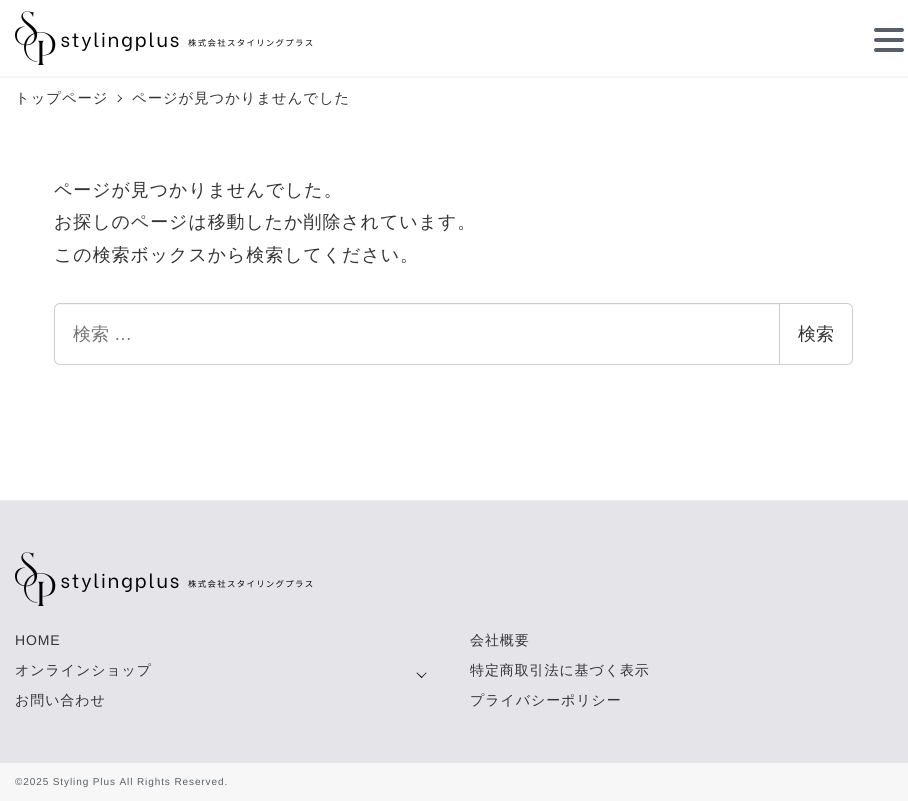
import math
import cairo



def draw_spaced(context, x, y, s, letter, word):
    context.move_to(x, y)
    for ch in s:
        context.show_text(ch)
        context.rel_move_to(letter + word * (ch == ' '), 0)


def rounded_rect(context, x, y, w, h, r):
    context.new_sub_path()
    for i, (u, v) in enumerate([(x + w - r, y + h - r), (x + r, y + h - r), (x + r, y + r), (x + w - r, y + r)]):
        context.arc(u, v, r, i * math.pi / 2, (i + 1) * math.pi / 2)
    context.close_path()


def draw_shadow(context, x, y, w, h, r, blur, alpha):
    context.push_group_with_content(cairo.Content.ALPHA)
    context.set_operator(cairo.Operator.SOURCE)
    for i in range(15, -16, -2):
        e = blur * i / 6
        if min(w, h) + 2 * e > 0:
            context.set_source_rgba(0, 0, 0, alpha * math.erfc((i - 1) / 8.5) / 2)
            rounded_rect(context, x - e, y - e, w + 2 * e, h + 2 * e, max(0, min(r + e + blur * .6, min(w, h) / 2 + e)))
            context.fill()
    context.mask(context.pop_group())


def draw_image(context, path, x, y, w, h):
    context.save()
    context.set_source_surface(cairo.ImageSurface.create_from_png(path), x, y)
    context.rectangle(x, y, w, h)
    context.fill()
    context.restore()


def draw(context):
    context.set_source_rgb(1, 1, 1)
    context.paint()
    context.save()
    context.rectangle(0, 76, 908, 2)
    context.clip()
    context.set_source_rgb(0, 0, 0)
    draw_shadow(context, -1, 0, 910, 78, 0, 1, 0.05)
    context.restore()
    draw_image(context, "images/1.png", 15, 11, 298, 54)
    context.set_source_rgb(88 / 255, 94 / 255, 106 / 255)
    rounded_rect(context, 874, 28, 30, 4, 2)
    context.fill()
    rounded_rect(context, 874, 38, 30, 4, 2)
    context.fill()
    rounded_rect(context, 874, 48, 30, 4, 2)
    context.fill()
    context.set_source_rgb(51 / 255, 51 / 255, 51 / 255)
    context.new_path()
    context.move_to(118, 94.5)
    context.line_to(122, 98.5)
    context.line_to(121.5, 99)
    context.line_to(117.5, 95)
    context.close_path()
    context.fill()
    context.new_path()
    context.move_to(121.5, 97.5)
    context.line_to(122, 98.5)
    context.line_to(118, 102.5)
    context.line_to(117.5, 101.5)
    context.close_path()
    context.fill()
    context.new_path()
    context.move_to(779.5, 303.5)
    context.line_to(847, 303.5)
    context.curve_to(850, 303.5, 852.5, 306, 852.5, 309)
    context.line_to(852.5, 359)
    context.curve_to(852.5, 362, 850, 364.5, 847, 364.5)
    context.line_to(779.5, 364.5)
    context.close_path()
    context.set_source_rgb(204 / 255, 204 / 255, 204 / 255)
    context.set_line_width(1)
    context.stroke()
    context.set_source_rgb(1, 1, 1)
    context.new_path()
    context.move_to(60, 303)
    context.line_to(780, 303)
    context.line_to(780, 365)
    context.line_to(60, 365)
    context.curve_to(56.5, 365, 54, 362.5, 54, 359)
    context.line_to(54, 309)
    context.curve_to(54, 305.5, 56.5, 303, 60, 303)
    context.close_path()
    context.fill()
    context.set_source_rgb(246 / 255, 246 / 255, 246 / 255)
    context.new_path()
    context.move_to(60, 305)
    context.line_to(779, 305)
    context.line_to(779, 304)
    context.line_to(60, 304)
    context.curve_to(57, 304, 55, 307, 55, 310)
    context.curve_to(55, 307, 57, 305, 60, 305)
    context.close_path()
    context.fill()
    context.new_path()
    context.move_to(60, 303.5)
    context.line_to(779.5, 303.5)
    context.line_to(779.5, 364.5)
    context.line_to(60, 364.5)
    context.curve_to(57, 364.5, 54.5, 362, 54.5, 359)
    context.line_to(54.5, 309)
    context.curve_to(54.5, 306, 57, 303.5, 60, 303.5)
    context.close_path()
    context.set_source_rgb(204 / 255, 204 / 255, 204 / 255)
    context.stroke()
    context.set_source_rgb(228 / 255, 228 / 255, 233 / 255)
    context.rectangle(0, 501, 908, 262)
    context.fill()
    context.set_source_rgb(238 / 255, 238 / 255, 238 / 255)
    context.rectangle(0, 500, 908, 1)
    context.fill()
    draw_image(context, "images/2.png", 15, 552, 298, 54)
    context.set_source_rgb(0, 0, 0)
    context.new_path()
    context.move_to(426.5, 673)
    context.line_to(421.5, 678)
    context.line_to(421, 677.5)
    context.line_to(426, 672.5)
    context.close_path()
    context.fill()
    context.new_path()
    context.move_to(422.5, 677.5)
    context.line_to(421.5, 678)
    context.line_to(416.5, 673)
    context.line_to(417, 672.5)
    context.close_path()
    context.fill()
    context.set_source_rgb(247 / 255, 247 / 255, 247 / 255)
    context.rectangle(0, 763, 908, 38)
    context.fill()
    context.select_font_face("WenQuanYi Zen Hei Medium")
    context.set_font_size(14.4)
    context.set_source_rgb(51 / 255, 51 / 255, 51 / 255)
    draw_spaced(context, 15, 103, "トップページ", 0.9, 0)
    draw_spaced(context, 132, 103, "ページが見つかりませんでした", 0.9, 0)
    context.set_font_size(18)
    draw_spaced(context, 54, 196, "ページが見つかりませんでした。", 0.9, 0)
    draw_spaced(context, 54, 228, "お探しのページは移動したか削除されています。", 0.9, 0)
    draw_spaced(context, 54, 261, "この検索ボックスから検索してください。", 0.9, 0)
    context.set_source_rgb(117 / 255, 117 / 255, 117 / 255)
    context.move_to(73, 340)
    context.show_text("検索")
    context.select_font_face("Liberation Sans")
    context.move_to(114, 340)
    context.show_text("…")
    context.select_font_face("WenQuanYi Zen Hei Medium")
    context.set_source_rgb(51 / 255, 51 / 255, 51 / 255)
    context.move_to(798, 340)
    context.show_text("検索")
    context.select_font_face("Liberation Sans")
    context.set_font_size(14)
    draw_spaced(context, 15, 645, "HOME", 0.9, 0)
    context.select_font_face("WenQuanYi Zen Hei Medium")
    draw_spaced(context, 15, 675, "オンラインショップ", 0.9, 0)
    draw_spaced(context, 15, 705, "お問い合わせ", 0.9, 0)
    draw_spaced(context, 470, 645, "会社概要", 0.9, 0)
    draw_spaced(context, 470, 675, "特定商取引法に基づく表示", 0.9, 0)
    draw_spaced(context, 470, 705, "プライバシーポリシー", 0.9, 0)
    context.select_font_face("Liberation Sans")
    context.set_font_size(10)
    context.set_source_rgb(88 / 255, 94 / 255, 106 / 255)
    draw_spaced(context, 15, 785, "©2025 Styling Plus All Rights Reserved.", 0.9, 0)


surface = cairo.ImageSurface(cairo.Format.RGB24, 908, 801)
context = cairo.Context(surface)
options = cairo.FontOptions()
options.set_hint_metrics(cairo.HintMetrics.OFF)
options.set_hint_style(cairo.HintStyle.NONE)
context.set_font_options(options)
context.set_miter_limit(4)
draw(context)
surface.write_to_png("out.png")
